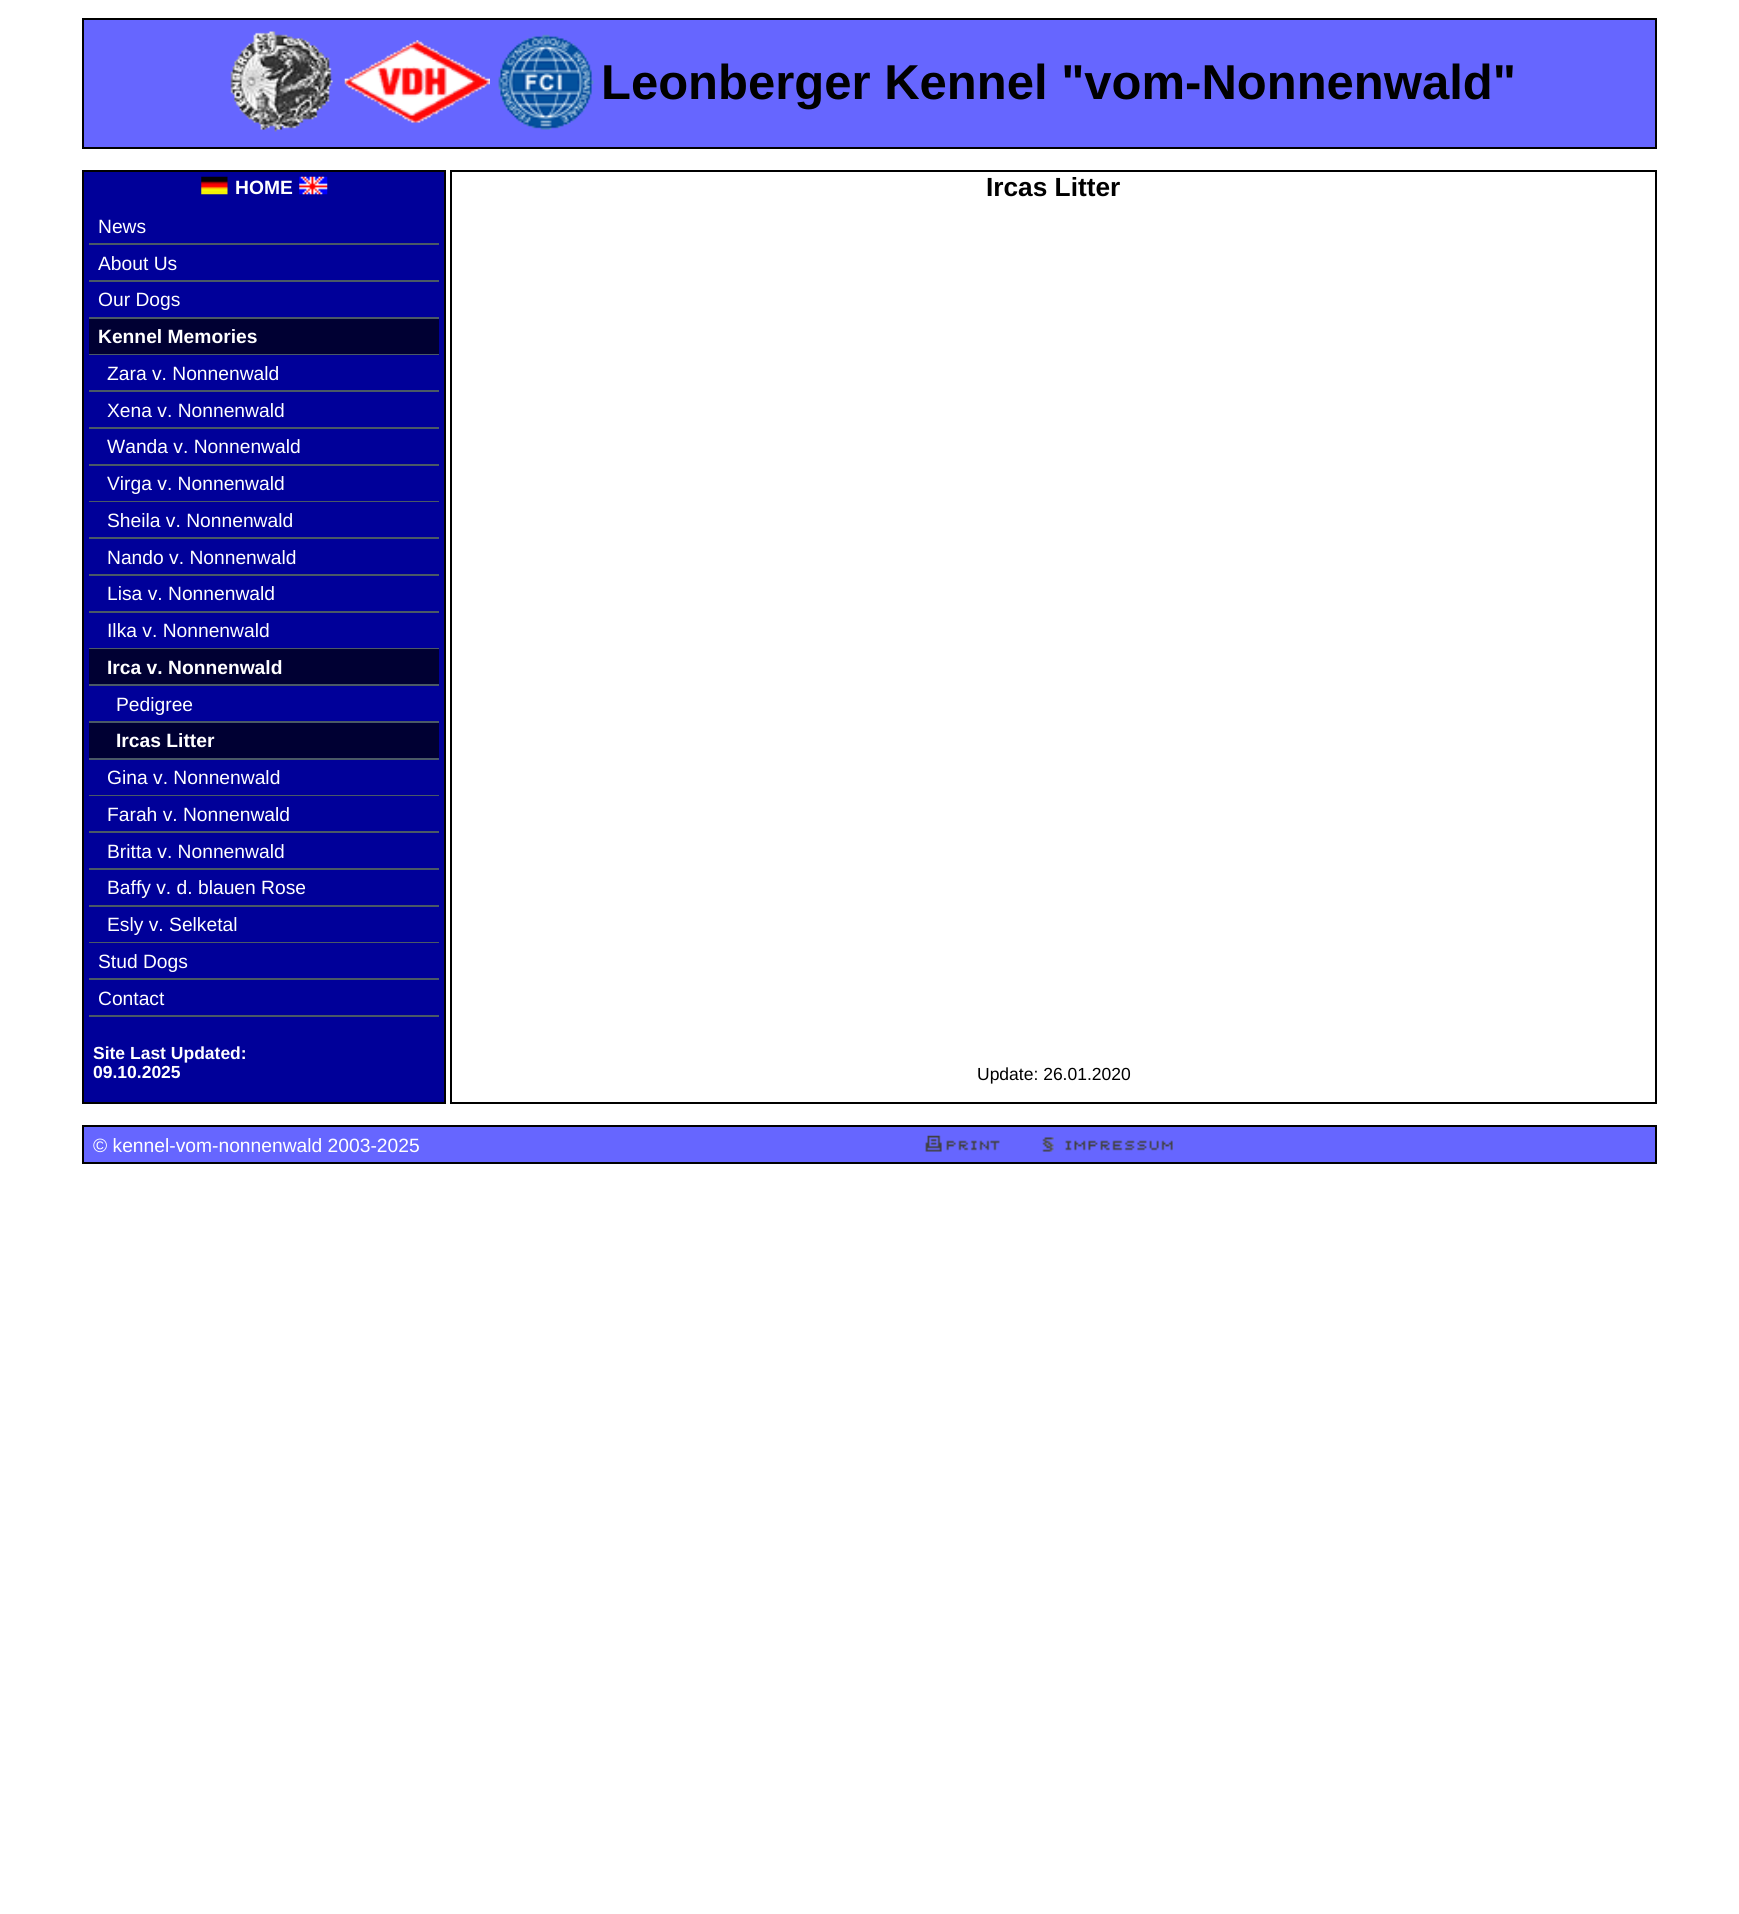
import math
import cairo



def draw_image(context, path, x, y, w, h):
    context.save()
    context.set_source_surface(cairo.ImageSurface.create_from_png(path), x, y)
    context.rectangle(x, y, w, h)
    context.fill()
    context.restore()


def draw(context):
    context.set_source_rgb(1, 1, 1)
    context.paint()
    context.set_source_rgb(102 / 255, 102 / 255, 1)
    context.rectangle(83, 19, 1573, 129)
    context.fill_preserve()
    context.set_source_rgb(0, 0, 0)
    context.stroke()
    draw_image(context, "images/1.png", 230, 31, 103, 101)
    draw_image(context, "images/2.png", 344, 40, 146, 83)
    draw_image(context, "images/3.png", 498, 34, 96, 96)
    context.set_source_rgb(0, 0, 153 / 255)
    context.rectangle(83, 171, 362, 932)
    context.fill_preserve()
    context.set_source_rgb(0, 0, 0)
    context.stroke()
    draw_image(context, "images/4.png", 201, 176, 27, 19)
    draw_image(context, "images/5.png", 299, 176, 29, 19)
    context.set_source_rgb(74 / 255, 89 / 255, 102 / 255)
    context.rectangle(89, 243, 350, 2)
    context.fill()
    context.rectangle(89, 280, 350, 2)
    context.fill()
    context.rectangle(89, 317, 350, 2)
    context.fill()
    context.set_source_rgb(0, 0, 51 / 255)
    context.rectangle(89, 319, 350, 35)
    context.fill()
    context.set_source_rgb(74 / 255, 89 / 255, 102 / 255)
    context.rectangle(89, 354, 350, 1)
    context.fill()
    context.rectangle(89, 390, 350, 2)
    context.fill()
    context.rectangle(89, 427, 350, 2)
    context.fill()
    context.rectangle(89, 464, 350, 2)
    context.fill()
    context.rectangle(89, 501, 350, 1)
    context.fill()
    context.rectangle(89, 537, 350, 2)
    context.fill()
    context.rectangle(89, 574, 350, 2)
    context.fill()
    context.rectangle(89, 611, 350, 2)
    context.fill()
    context.rectangle(89, 648, 350, 1)
    context.fill()
    context.set_source_rgb(0, 0, 51 / 255)
    context.rectangle(89, 649, 350, 35)
    context.fill()
    context.set_source_rgb(74 / 255, 89 / 255, 102 / 255)
    context.rectangle(89, 684, 350, 2)
    context.fill()
    context.rectangle(89, 721, 350, 2)
    context.fill()
    context.set_source_rgb(0, 0, 51 / 255)
    context.rectangle(89, 723, 350, 35)
    context.fill()
    context.set_source_rgb(74 / 255, 89 / 255, 102 / 255)
    context.rectangle(89, 758, 350, 2)
    context.fill()
    context.rectangle(89, 795, 350, 1)
    context.fill()
    context.rectangle(89, 831, 350, 2)
    context.fill()
    context.rectangle(89, 868, 350, 2)
    context.fill()
    context.rectangle(89, 905, 350, 2)
    context.fill()
    context.rectangle(89, 942, 350, 1)
    context.fill()
    context.rectangle(89, 978, 350, 2)
    context.fill()
    context.rectangle(89, 1015, 350, 2)
    context.fill()
    context.rectangle(451, 171, 1205, 932)
    context.set_source_rgb(0, 0, 0)
    context.stroke()
    context.set_source_rgb(102 / 255, 102 / 255, 1)
    context.rectangle(83, 1126, 1573, 37)
    context.fill_preserve()
    context.set_source_rgb(0, 0, 0)
    context.stroke()
    draw_image(context, "images/6.png", 925, 1135, 75, 17)
    draw_image(context, "images/7.png", 1042, 1137, 131, 15)
    context.select_font_face("Liberation Sans", cairo.FontSlant.NORMAL, cairo.FontWeight.BOLD)
    context.set_font_size(49)
    context.move_to(601, 99)
    context.show_text("Leonberger Kennel \"vom-Nonnenwald\"")
    context.set_font_size(19.25)
    context.set_source_rgb(1, 1, 1)
    context.move_to(235, 194)
    context.show_text("HOME")
    context.select_font_face("Liberation Sans")
    context.move_to(98, 233)
    context.show_text("News")
    context.move_to(98, 270)
    context.show_text("About Us")
    context.move_to(98, 306)
    context.show_text("Our Dogs")
    context.select_font_face("Liberation Sans", cairo.FontSlant.NORMAL, cairo.FontWeight.BOLD)
    context.move_to(98, 343)
    context.show_text("Kennel Memories")
    context.select_font_face("Liberation Sans")
    context.move_to(107, 380)
    context.show_text("Zara v. Nonnenwald")
    context.move_to(107, 417)
    context.show_text("Xena v. Nonnenwald")
    context.move_to(107, 453)
    context.show_text("Wanda v. Nonnenwald")
    context.move_to(107, 490)
    context.show_text("Virga v. Nonnenwald")
    context.move_to(107, 527)
    context.show_text("Sheila v. Nonnenwald")
    context.move_to(107, 564)
    context.show_text("Nando v. Nonnenwald")
    context.move_to(107, 600)
    context.show_text("Lisa v. Nonnenwald")
    context.move_to(107, 637)
    context.show_text("Ilka v. Nonnenwald")
    context.select_font_face("Liberation Sans", cairo.FontSlant.NORMAL, cairo.FontWeight.BOLD)
    context.move_to(107, 674)
    context.show_text("Irca v. Nonnenwald")
    context.select_font_face("Liberation Sans")
    context.move_to(116, 711)
    context.show_text("Pedigree")
    context.select_font_face("Liberation Sans", cairo.FontSlant.NORMAL, cairo.FontWeight.BOLD)
    context.move_to(116, 747)
    context.show_text("Ircas Litter")
    context.select_font_face("Liberation Sans")
    context.move_to(107, 784)
    context.show_text("Gina v. Nonnenwald")
    context.move_to(107, 821)
    context.show_text("Farah v. Nonnenwald")
    context.move_to(107, 858)
    context.show_text("Britta v. Nonnenwald")
    context.move_to(107, 894)
    context.show_text("Baffy v. d. blauen Rose")
    context.move_to(107, 931)
    context.show_text("Esly v. Selketal")
    context.move_to(98, 968)
    context.show_text("Stud Dogs")
    context.move_to(98, 1005)
    context.show_text("Contact")
    context.select_font_face("Liberation Sans", cairo.FontSlant.NORMAL, cairo.FontWeight.BOLD)
    context.set_font_size(17.5)
    context.move_to(93, 1059)
    context.show_text("Site Last Updated:")
    context.move_to(93, 1078)
    context.show_text("09.10.2025")
    context.set_font_size(26.25)
    context.set_source_rgb(0, 0, 0)
    context.move_to(986, 196)
    context.show_text("Ircas Litter")
    context.select_font_face("Liberation Sans")
    context.set_font_size(17.5)
    context.move_to(977, 1080)
    context.show_text("Update: 26.01.2020")
    context.set_font_size(19.25)
    context.set_source_rgb(1, 1, 1)
    context.move_to(93, 1152)
    context.show_text("© kennel-vom-nonnenwald 2003-2025")


surface = cairo.ImageSurface(cairo.Format.RGB24, 1739, 1914)
context = cairo.Context(surface)
options = cairo.FontOptions()
options.set_hint_metrics(cairo.HintMetrics.OFF)
options.set_hint_style(cairo.HintStyle.NONE)
context.set_font_options(options)
context.set_miter_limit(4)
draw(context)
surface.write_to_png("out.png")
